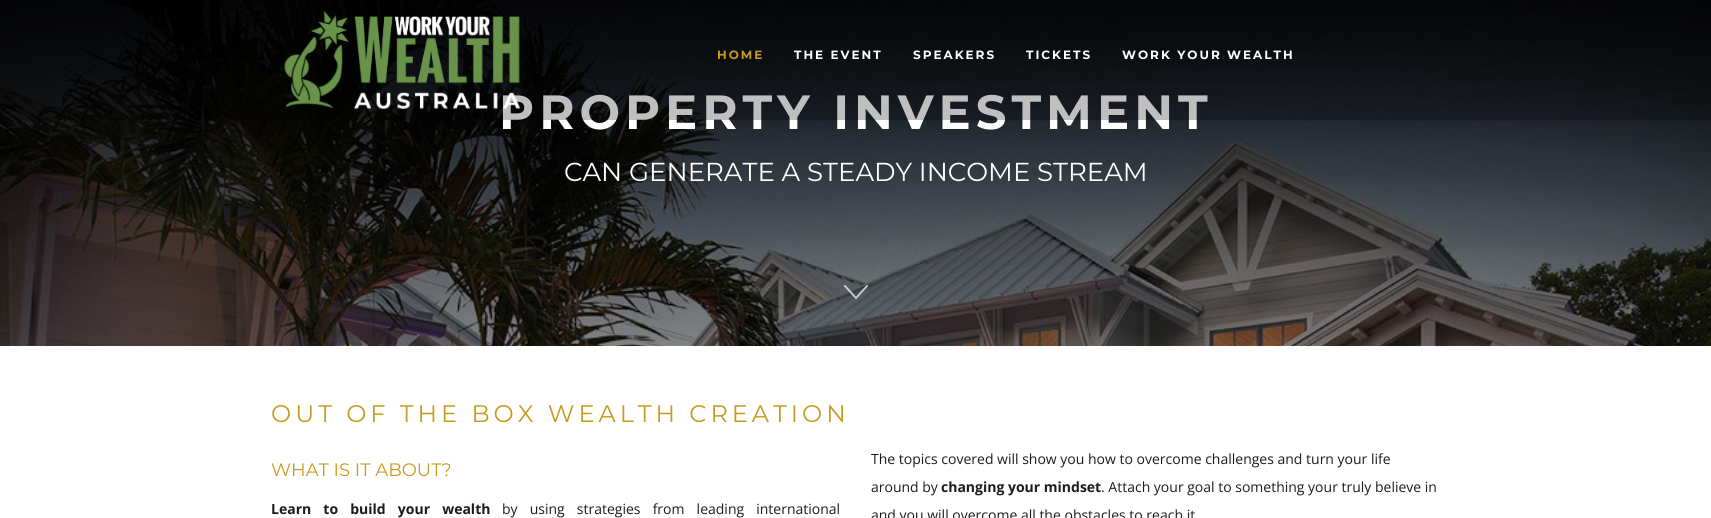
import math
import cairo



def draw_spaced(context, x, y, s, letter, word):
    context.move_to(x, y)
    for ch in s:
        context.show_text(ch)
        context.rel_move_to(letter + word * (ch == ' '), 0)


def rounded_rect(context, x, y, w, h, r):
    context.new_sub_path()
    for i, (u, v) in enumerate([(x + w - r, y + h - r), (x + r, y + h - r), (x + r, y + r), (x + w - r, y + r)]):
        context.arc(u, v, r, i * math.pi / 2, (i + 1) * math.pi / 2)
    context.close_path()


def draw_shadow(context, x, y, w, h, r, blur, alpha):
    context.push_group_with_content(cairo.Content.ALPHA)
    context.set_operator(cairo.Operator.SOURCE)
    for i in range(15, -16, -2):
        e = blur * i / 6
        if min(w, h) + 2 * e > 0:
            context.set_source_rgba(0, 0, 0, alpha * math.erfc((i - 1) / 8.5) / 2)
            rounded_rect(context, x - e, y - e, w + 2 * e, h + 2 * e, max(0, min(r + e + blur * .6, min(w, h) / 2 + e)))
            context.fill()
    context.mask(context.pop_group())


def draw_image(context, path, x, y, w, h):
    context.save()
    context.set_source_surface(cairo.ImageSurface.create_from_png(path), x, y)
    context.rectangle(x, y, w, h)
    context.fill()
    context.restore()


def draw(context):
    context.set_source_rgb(1, 1, 1)
    context.paint()
    draw_image(context, "images/2.png", 0, 0, 1711, 346)
    context.save()
    context.rectangle(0, 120, 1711, 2)
    context.clip()
    context.set_source_rgb(0, 0, 0)
    draw_shadow(context, 0, 1, 1711, 120, 0, 1.5, 0.11)
    context.restore()
    draw_image(context, "images/3.png", 844, 285, 24, 14)
    context.select_font_face("Montserrat", cairo.FontSlant.NORMAL, cairo.FontWeight.BOLD)
    context.set_font_size(48)
    context.set_source_rgb(1, 1, 1)
    draw_spaced(context, 499, 129, "PROPERTY INVESTMENT", 5, 0)
    context.set_source_rgba(0, 0, 0, 0.25)
    context.rectangle(0, 0, 1711, 120)
    context.fill()
    context.set_font_size(12)
    context.set_source_rgb(1, 1, 1)
    draw_spaced(context, 1122, 59, "WORK YOUR WEALTH", 2, 0)
    draw_spaced(context, 1026, 59, "TICKETS", 2, 0)
    draw_spaced(context, 913, 59, "SPEAKERS", 2, 0)
    draw_spaced(context, 794, 59, "THE EVENT", 2, 0)
    context.set_source_rgb(200 / 255, 155 / 255, 32 / 255)
    draw_spaced(context, 717, 59, "HOME", 2, 0)
    draw_image(context, "images/1.png", 284, 11, 237, 98)
    context.select_font_face("Montserrat")
    context.set_font_size(26)
    context.set_source_rgb(1, 1, 1)
    context.move_to(564, 181)
    context.show_text("CAN GENERATE A STEADY INCOME STREAM")
    context.set_font_size(24)
    context.set_source_rgb(200 / 255, 155 / 255, 32 / 255)
    draw_spaced(context, 271, 422, "OUT OF THE BOX WEALTH CREATION", 4, 0)
    context.set_font_size(18)
    context.move_to(271, 476)
    context.show_text("WHAT IS IT ABOUT?")
    context.select_font_face("Open Sans", cairo.FontSlant.NORMAL, cairo.FontWeight.BOLD)
    context.set_font_size(14)
    context.set_source_rgb(28 / 255, 28 / 255, 30 / 255)
    draw_spaced(context, 271, 514, "Learn to build your wealth", 0, 8.5)
    context.select_font_face("Open Sans")
    draw_spaced(context, 502, 514, "by using strategies from leading international", 0, 8.5)
    context.move_to(871, 464)
    context.show_text("The topics covered will show you how to overcome challenges and turn your life")
    context.move_to(871, 492)
    context.show_text("around by")
    context.select_font_face("Open Sans", cairo.FontSlant.NORMAL, cairo.FontWeight.BOLD)
    context.move_to(941, 492)
    context.show_text("changing your mindset")
    context.select_font_face("Open Sans")
    context.move_to(1101, 492)
    context.show_text(". Attach your goal to something your truly believe in")
    context.move_to(871, 520)
    context.show_text("and you will overcome all the obstacles to reach it")


surface = cairo.ImageSurface(cairo.Format.RGB24, 1711, 518)
context = cairo.Context(surface)
options = cairo.FontOptions()
options.set_hint_metrics(cairo.HintMetrics.OFF)
options.set_hint_style(cairo.HintStyle.NONE)
context.set_font_options(options)
context.set_miter_limit(4)
draw(context)
surface.write_to_png("out.png")
